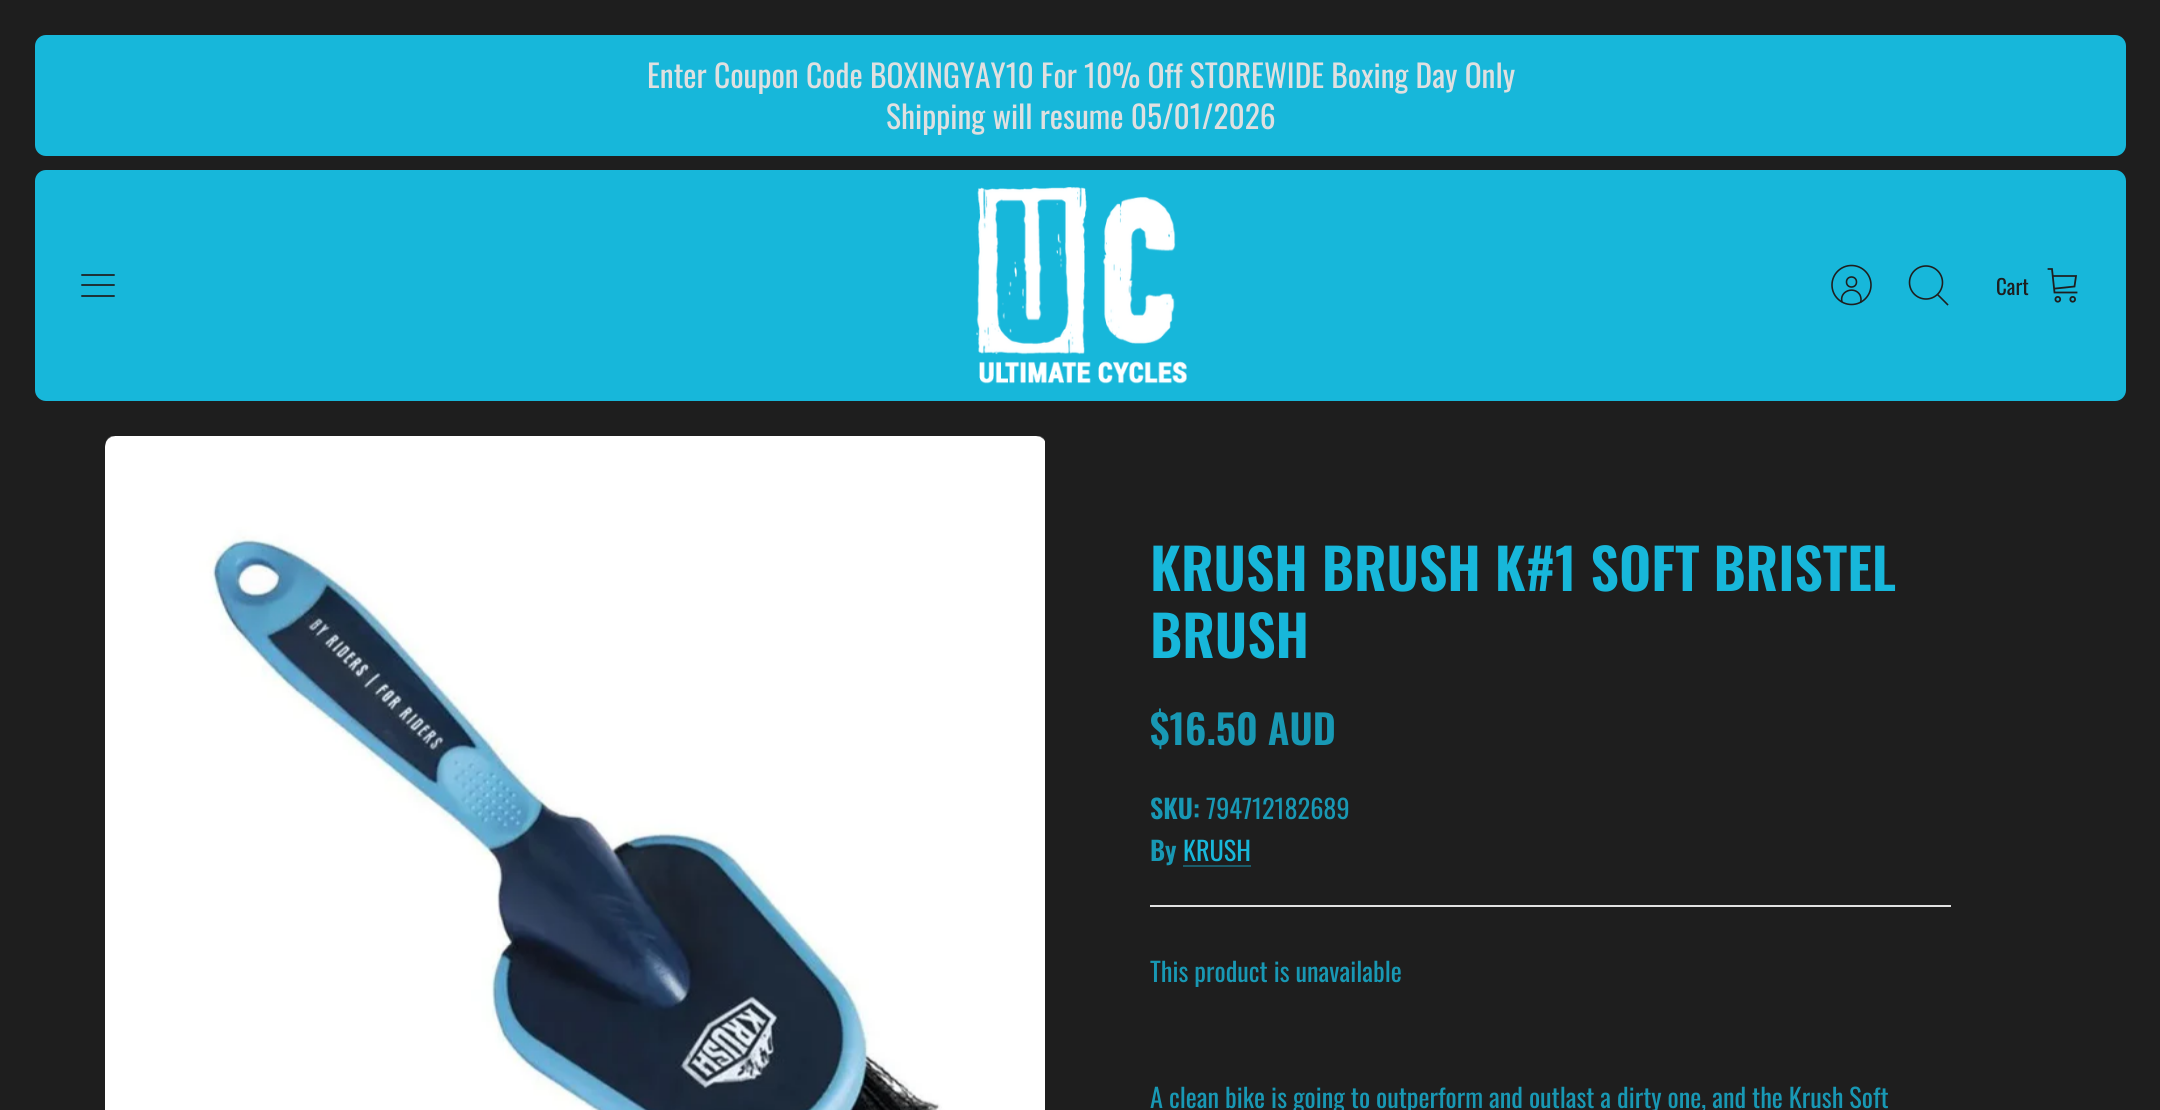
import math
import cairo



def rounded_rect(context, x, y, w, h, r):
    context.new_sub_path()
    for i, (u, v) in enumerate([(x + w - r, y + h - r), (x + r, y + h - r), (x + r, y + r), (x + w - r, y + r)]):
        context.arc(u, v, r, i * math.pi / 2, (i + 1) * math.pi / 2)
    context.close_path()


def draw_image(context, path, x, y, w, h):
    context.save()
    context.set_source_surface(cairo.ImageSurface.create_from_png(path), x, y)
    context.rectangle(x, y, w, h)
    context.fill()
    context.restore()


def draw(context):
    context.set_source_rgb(30 / 255, 30 / 255, 30 / 255)
    context.paint()
    context.set_source_rgb(23 / 255, 183 / 255, 218 / 255)
    rounded_rect(context, 35, 35, 2091, 121, 11)
    context.fill()
    rounded_rect(context, 35, 170, 2091, 231, 11)
    context.fill()
    context.new_path()
    context.move_to(82, 285)
    context.line_to(114, 285)
    context.move_to(82, 275)
    context.line_to(114, 275)
    context.move_to(82, 296)
    context.line_to(114, 296)
    context.set_source_rgb(30 / 255, 30 / 255, 30 / 255)
    context.set_line_width(1.8)
    context.set_line_cap(cairo.LineCap.ROUND)
    context.set_line_join(cairo.LineJoin.ROUND)
    context.stroke()
    draw_image(context, "images/1.png", 976, 187, 211, 197)
    context.new_path()
    context.move_to(1860.5, 302.5)
    context.curve_to(1861.5, 300, 1861, 297.5, 1860, 295)
    context.curve_to(1854.5, 285.5, 1839, 291, 1842, 302)
    context.set_line_width(1.6)
    context.set_line_cap(cairo.LineCap.BUTT)
    context.set_line_join(cairo.LineJoin.MITER)
    context.stroke()
    context.arc(1851.5, 282, 5, 0, 2 * math.pi)
    context.stroke()
    context.arc(1851.5, 285, 19.5, 0, 2 * math.pi)
    context.stroke()
    context.arc(1926, 282.5, 16.5, 0, 2 * math.pi)
    context.stroke()
    context.new_path()
    context.move_to(1938, 295)
    context.line_to(1947.5, 304.5)
    context.set_line_cap(cairo.LineCap.SQUARE)
    context.stroke()
    context.new_path()
    context.move_to(2048.5, 269)
    context.line_to(2052, 269)
    context.line_to(2054.5, 292.5)
    context.line_to(2076.5, 292.5)
    context.move_to(2053, 276)
    context.line_to(2076, 276)
    context.line_to(2074.5, 286.5)
    context.line_to(2055.5, 288.5)
    context.set_line_width(1.8)
    context.stroke()
    context.arc(2057.8, 299.3, 2.4, 0, 2 * math.pi)
    context.set_line_cap(cairo.LineCap.BUTT)
    context.stroke()
    context.arc(2072.7, 299.3, 2.4, 0, 2 * math.pi)
    context.stroke()
    draw_image(context, "images/2.png", 105, 436, 940, 674)
    context.set_source_rgb(27 / 255, 91 / 255, 105 / 255)
    context.rectangle(1183, 865, 68, 2)
    context.fill()
    context.set_source_rgb(226 / 255, 226 / 255, 226 / 255)
    context.rectangle(1150, 905, 801, 2)
    context.fill()
    context.select_font_face("Oswald")
    context.set_font_size(31.5)
    context.set_source_rgb(224 / 255, 224 / 255, 224 / 255)
    context.move_to(647, 88)
    context.show_text("Enter Coupon Code BOXINGYAY10 For 10% Off STOREWIDE Boxing Day Only")
    context.move_to(886, 129)
    context.show_text("Shipping will resume 05/01/2026")
    context.set_font_size(21)
    context.set_source_rgb(30 / 255, 30 / 255, 30 / 255)
    context.move_to(1996, 295)
    context.show_text("Cart")
    context.select_font_face("Oswald SemiBold")
    context.set_font_size(56)
    context.set_source_rgb(23 / 255, 183 / 255, 218 / 255)
    context.move_to(1150, 591)
    context.show_text("KRUSH BRUSH K#1 SOFT BRISTEL")
    context.move_to(1150, 658)
    context.show_text("BRUSH")
    context.set_font_size(40.25)
    context.set_source_rgb(24 / 255, 152 / 255, 180 / 255)
    context.move_to(1150, 745)
    context.show_text("$16.50 AUD")
    context.set_font_size(26.25)
    context.move_to(1150, 819)
    context.show_text("SKU:")
    context.select_font_face("Oswald")
    context.move_to(1206, 819)
    context.show_text("794712182689")
    context.select_font_face("Oswald SemiBold")
    context.move_to(1150, 861)
    context.show_text("By")
    context.select_font_face("Oswald")
    context.set_source_rgb(23 / 255, 183 / 255, 218 / 255)
    context.move_to(1183, 861)
    context.show_text("KRUSH")
    context.set_source_rgb(24 / 255, 152 / 255, 180 / 255)
    context.move_to(1150, 982)
    context.show_text("This product is unavailable")
    context.move_to(1150, 1108)
    context.show_text("A clean bike is going to outperform and outlast a dirty one, and the Krush Soft")


surface = cairo.ImageSurface(cairo.Format.RGB24, 2160, 1110)
context = cairo.Context(surface)
options = cairo.FontOptions()
options.set_hint_metrics(cairo.HintMetrics.OFF)
options.set_hint_style(cairo.HintStyle.NONE)
context.set_font_options(options)
context.set_miter_limit(4)
draw(context)
surface.write_to_png("out.png")
